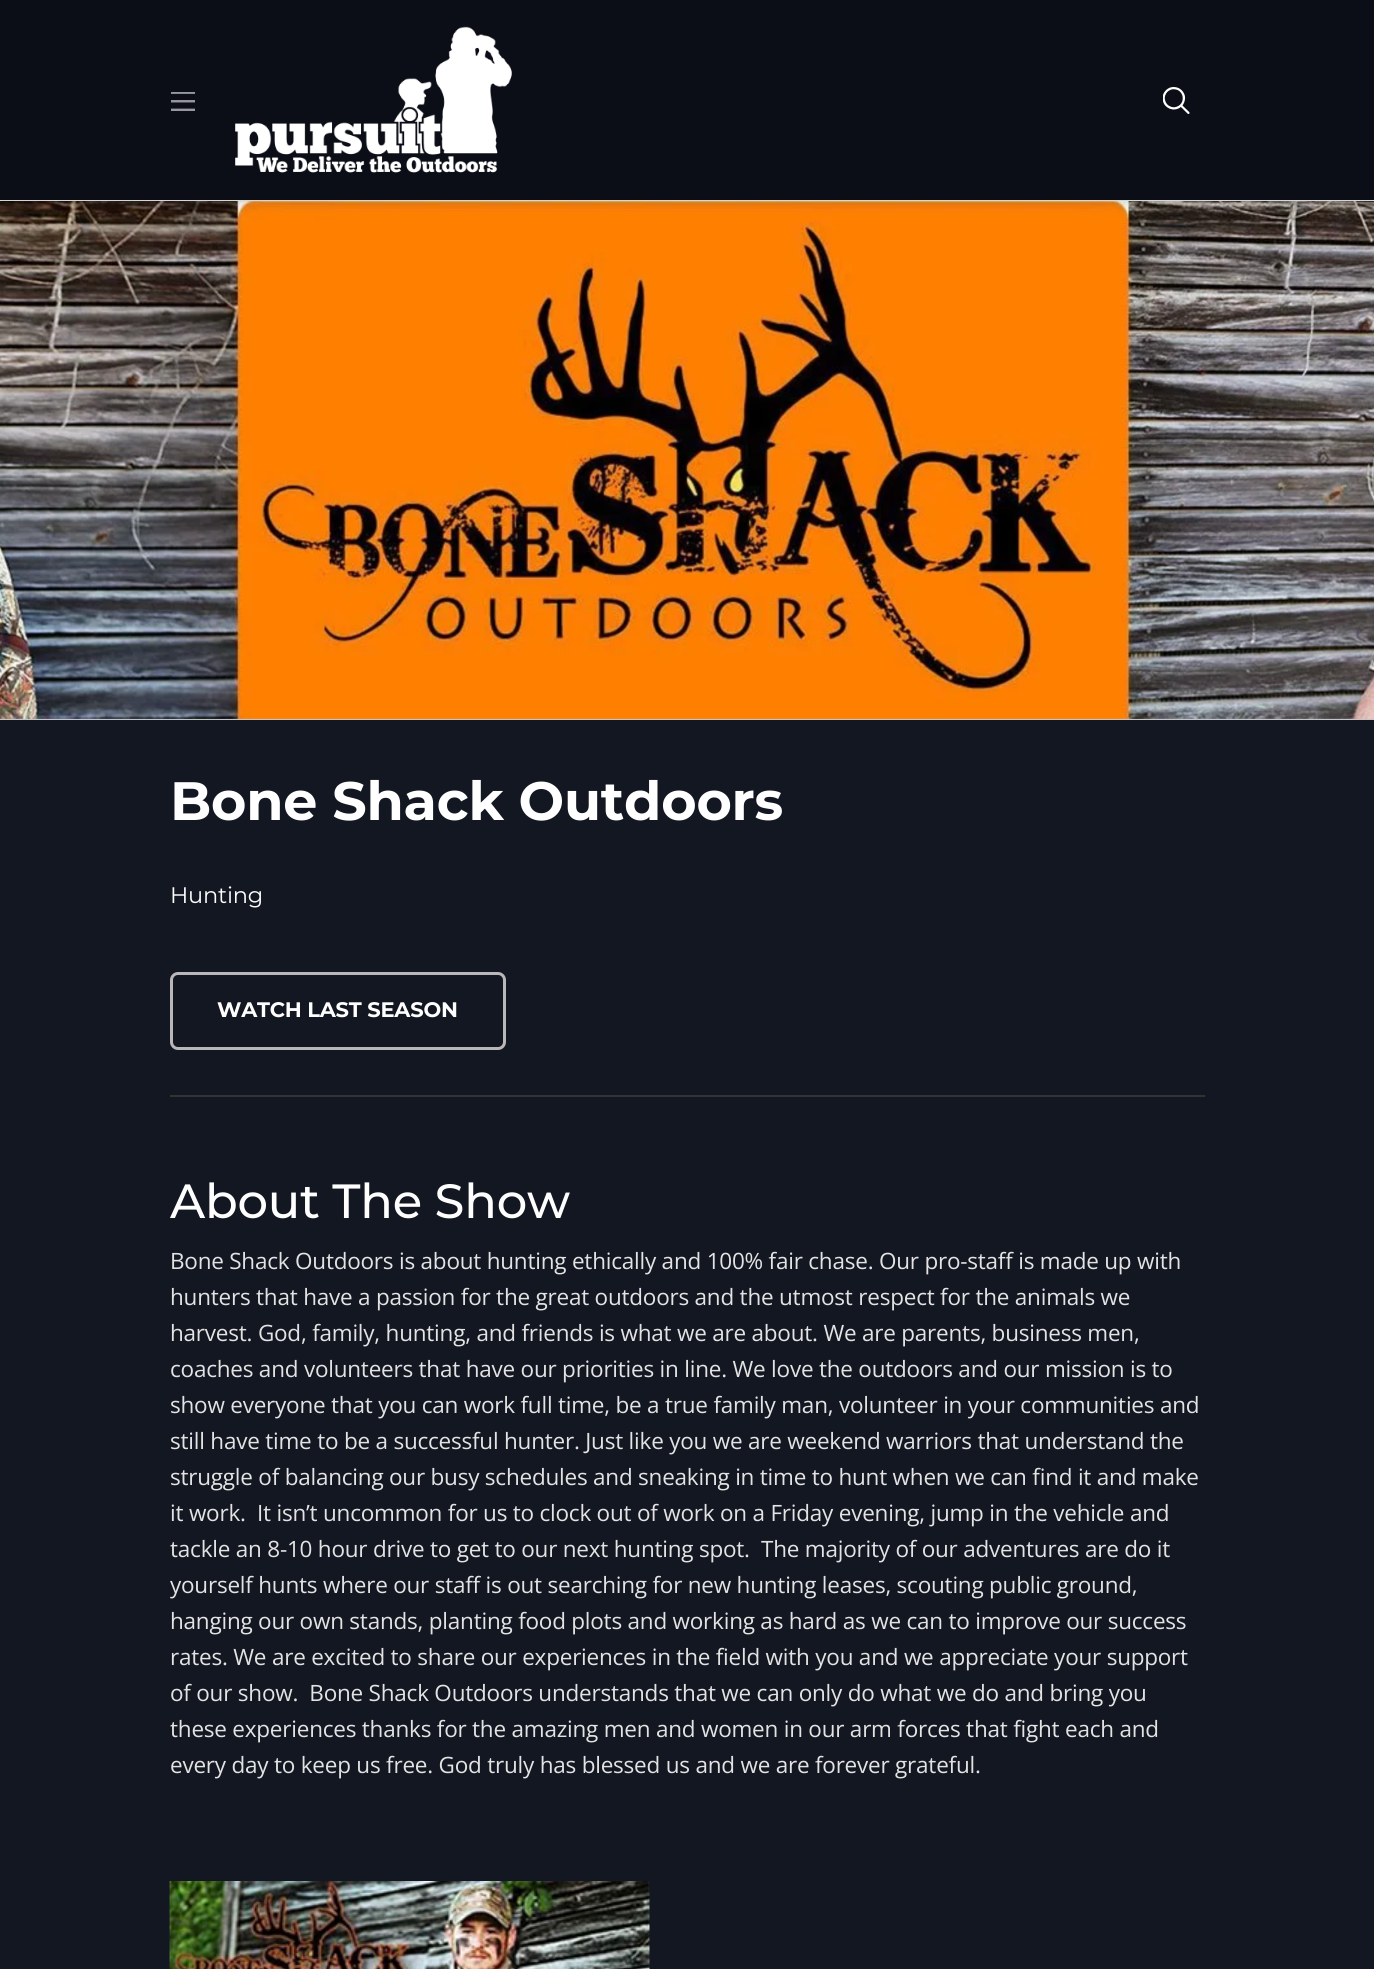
import math
import cairo



def draw_spaced(context, x, y, s, letter, word):
    context.move_to(x, y)
    for ch in s:
        context.show_text(ch)
        context.rel_move_to(letter + word * (ch == ' '), 0)


def rounded_rect(context, x, y, w, h, r):
    context.new_sub_path()
    for i, (u, v) in enumerate([(x + w - r, y + h - r), (x + r, y + h - r), (x + r, y + r), (x + w - r, y + r)]):
        context.arc(u, v, r, i * math.pi / 2, (i + 1) * math.pi / 2)
    context.close_path()


def draw_shadow(context, x, y, w, h, r, blur, alpha):
    context.push_group_with_content(cairo.Content.ALPHA)
    context.set_operator(cairo.Operator.SOURCE)
    for i in range(15, -16, -2):
        e = blur * i / 6
        if min(w, h) + 2 * e > 0:
            context.set_source_rgba(0, 0, 0, alpha * math.erfc((i - 1) / 8.5) / 2)
            rounded_rect(context, x - e, y - e, w + 2 * e, h + 2 * e, max(0, min(r + e + blur * .6, min(w, h) / 2 + e)))
            context.fill()
    context.mask(context.pop_group())


def draw_image(context, path, x, y, w, h):
    context.save()
    context.set_source_surface(cairo.ImageSurface.create_from_png(path), x, y)
    context.rectangle(x, y, w, h)
    context.fill()
    context.restore()


def draw(context):
    context.set_source_rgb(19 / 255, 23 / 255, 34 / 255)
    context.paint()
    draw_image(context, "images/4.png", 0, 200, 1374, 520)
    context.set_source_rgb(51 / 255, 51 / 255, 51 / 255)
    draw_shadow(context, 0, 0, 1374, 200, 0, 6, 0.3)
    context.set_source_rgb(12 / 255, 14 / 255, 23 / 255)
    context.rectangle(0, 0, 1374, 200)
    context.fill()
    draw_image(context, "images/1.png", 171, 92, 24, 19)
    draw_image(context, "images/2.png", 235, 26, 277, 147)
    draw_image(context, "images/3.png", 1163, 87, 27, 27)
    context.set_source_rgb(51 / 255, 51 / 255, 51 / 255)
    context.rectangle(170, 1095, 1035, 2)
    context.fill()
    rounded_rect(context, 171.5, 973.5, 333, 75, 6.5)
    context.set_source_rgb(186 / 255, 183 / 255, 186 / 255)
    context.set_line_width(3)
    context.stroke()
    draw_image(context, "images/5.png", 169, 1881, 481, 88)
    context.select_font_face("Montserrat", cairo.FontSlant.NORMAL, cairo.FontWeight.BOLD)
    context.set_font_size(54)
    context.set_source_rgb(1, 1, 1)
    draw_spaced(context, 170, 820, "Bone Shack Outdoors", -0.22, 0)
    context.select_font_face("Montserrat")
    context.set_font_size(22.5)
    draw_spaced(context, 170, 903, "Hunting", -0.22, 0)
    context.select_font_face("Montserrat", cairo.FontSlant.NORMAL, cairo.FontWeight.BOLD)
    context.set_font_size(21)
    draw_spaced(context, 217, 1017, "WATCH LAST SEASON", -0.22, 0)
    context.select_font_face("Montserrat Medium")
    context.set_font_size(48)
    draw_spaced(context, 170, 1218, "About The Show", -0.22, 0)
    context.select_font_face("Open Sans")
    context.set_font_size(22.5)
    context.set_source_rgb(227 / 255, 227 / 255, 227 / 255)
    draw_spaced(context, 170, 1269, "Bone Shack Outdoors is about hunting ethically and 100% fair chase. Our pro-staff is made up with", -0.22, 0)
    draw_spaced(context, 170, 1305, "hunters that have a passion for the great outdoors and the utmost respect for the animals we", -0.22, 0)
    draw_spaced(context, 170, 1341, "harvest. God, family, hunting, and friends is what we are about. We are parents, business men,", -0.22, 0)
    draw_spaced(context, 170, 1377, "coaches and volunteers that have our priorities in line. We love the outdoors and our mission is to", -0.22, 0)
    draw_spaced(context, 170, 1413, "show everyone that you can work full time, be a true family man, volunteer in your communities and", -0.22, 0)
    draw_spaced(context, 170, 1449, "still have time to be a successful hunter. Just like you we are weekend warriors that understand the", -0.22, 0)
    draw_spaced(context, 170, 1485, "struggle of balancing our busy schedules and sneaking in time to hunt when we can find it and make", -0.22, 0)
    draw_spaced(context, 170, 1521, "it work.  It isn’t uncommon for us to clock out of work on a Friday evening, jump in the vehicle and", -0.22, 0)
    draw_spaced(context, 170, 1557, "tackle an 8-10 hour drive to get to our next hunting spot.  The majority of our adventures are do it", -0.22, 0)
    draw_spaced(context, 170, 1593, "yourself hunts where our staff is out searching for new hunting leases, scouting public ground,", -0.22, 0)
    draw_spaced(context, 170, 1629, "hanging our own stands, planting food plots and working as hard as we can to improve our success", -0.22, 0)
    draw_spaced(context, 170, 1665, "rates. We are excited to share our experiences in the field with you and we appreciate your support", -0.22, 0)
    draw_spaced(context, 170, 1701, "of our show.  Bone Shack Outdoors understands that we can only do what we do and bring you", -0.22, 0)
    draw_spaced(context, 170, 1737, "these experiences thanks for the amazing men and women in our arm forces that fight each and", -0.22, 0)
    draw_spaced(context, 170, 1773, "every day to keep us free. God truly has blessed us and we are forever grateful.", -0.22, 0)


surface = cairo.ImageSurface(cairo.Format.RGB24, 1374, 1969)
context = cairo.Context(surface)
options = cairo.FontOptions()
options.set_hint_metrics(cairo.HintMetrics.OFF)
options.set_hint_style(cairo.HintStyle.NONE)
context.set_font_options(options)
context.set_miter_limit(4)
draw(context)
surface.write_to_png("out.png")
